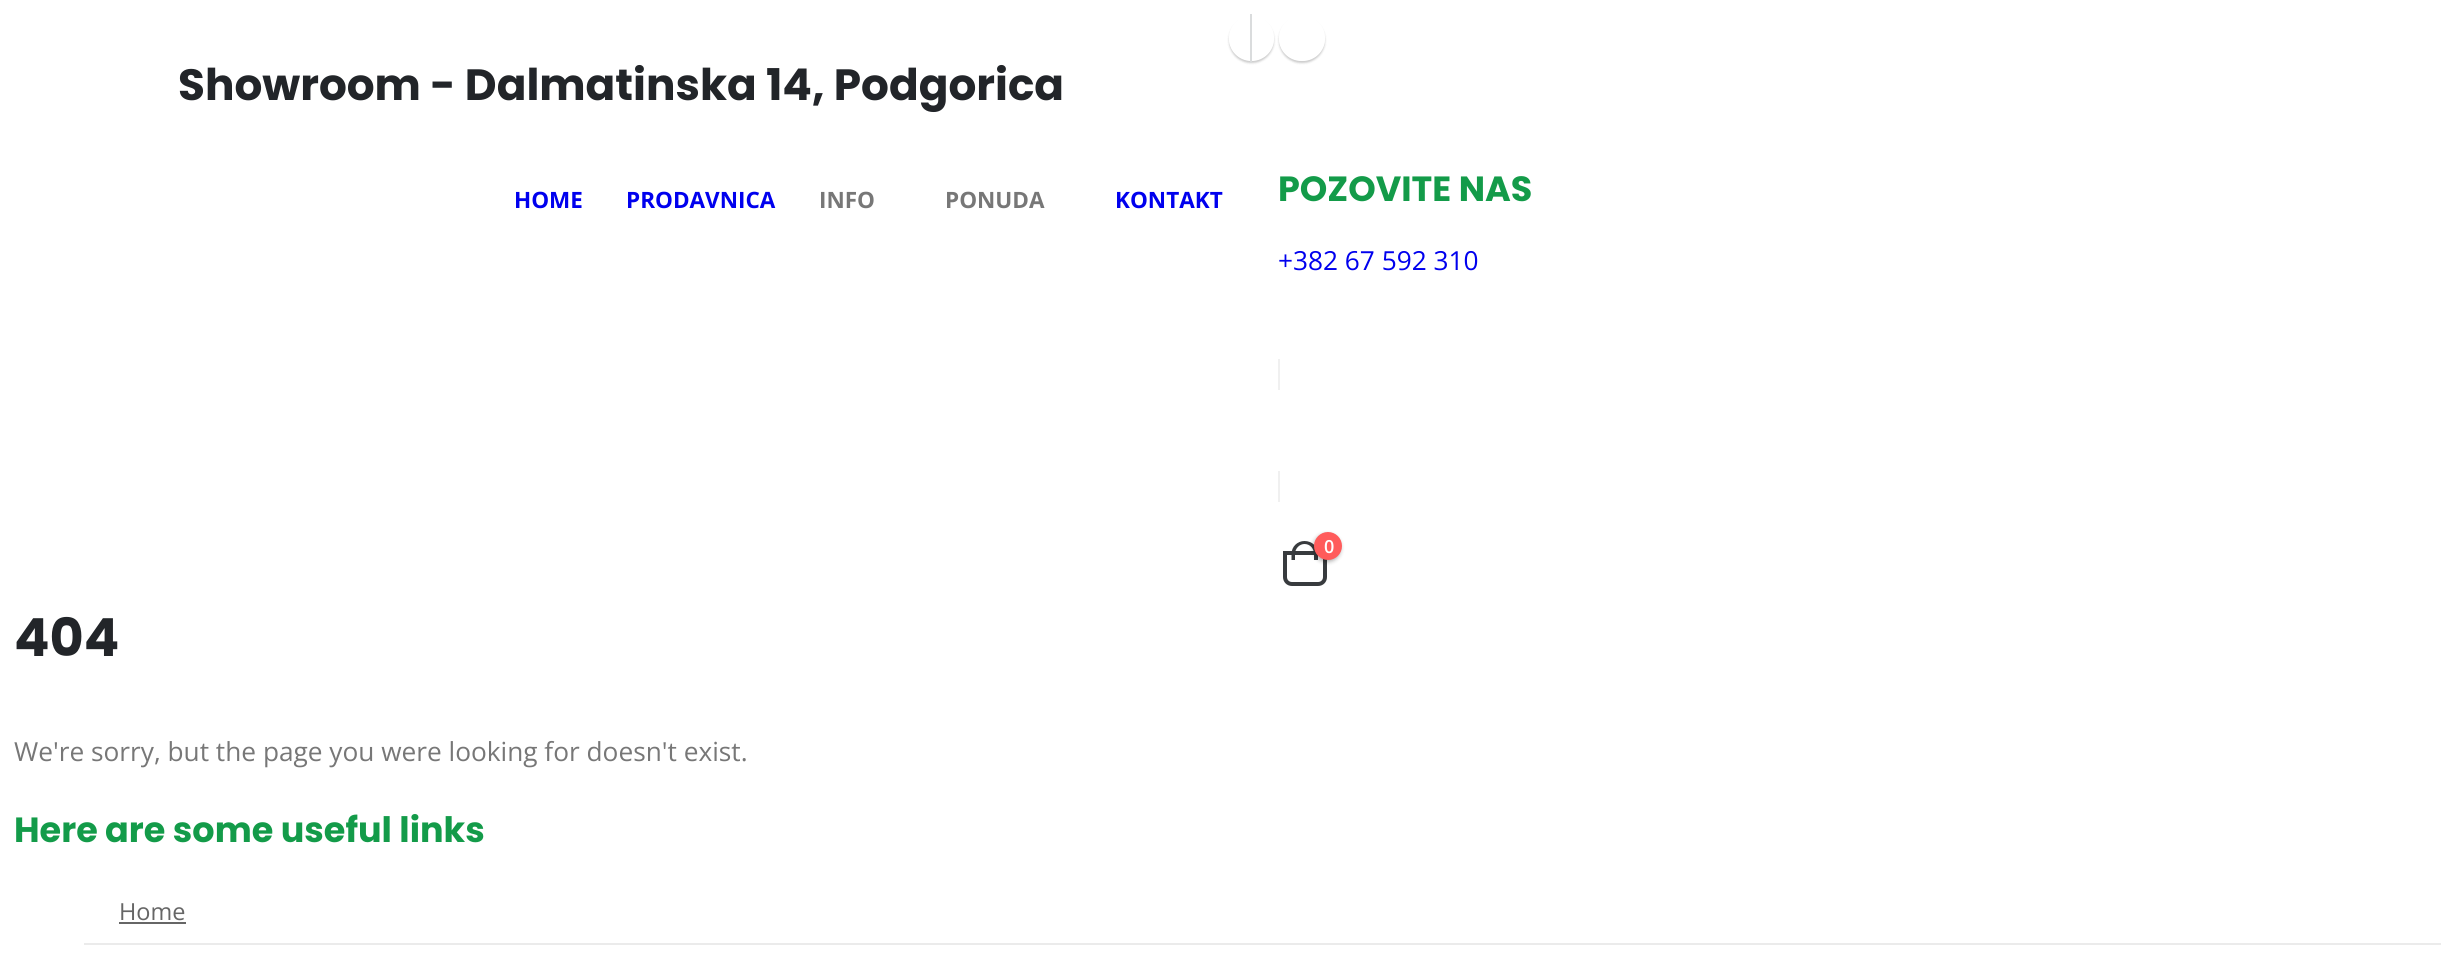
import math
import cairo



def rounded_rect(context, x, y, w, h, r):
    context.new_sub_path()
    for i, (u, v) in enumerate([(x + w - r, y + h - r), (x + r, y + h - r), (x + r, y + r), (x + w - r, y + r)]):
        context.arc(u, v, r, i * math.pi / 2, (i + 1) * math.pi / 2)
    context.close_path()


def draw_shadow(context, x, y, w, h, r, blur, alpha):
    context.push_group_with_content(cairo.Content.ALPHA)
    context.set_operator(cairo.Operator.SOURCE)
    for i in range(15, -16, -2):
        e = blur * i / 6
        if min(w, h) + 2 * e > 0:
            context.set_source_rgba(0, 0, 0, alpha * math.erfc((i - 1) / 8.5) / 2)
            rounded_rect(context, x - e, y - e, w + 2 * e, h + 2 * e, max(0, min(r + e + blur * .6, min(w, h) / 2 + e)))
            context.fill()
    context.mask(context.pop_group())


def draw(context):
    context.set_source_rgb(1, 1, 1)
    context.paint()
    context.save()
    context.set_fill_rule(cairo.FillRule.EVEN_ODD)
    context.new_path()
    context.move_to(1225, 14)
    context.line_to(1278, 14)
    context.line_to(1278, 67)
    context.line_to(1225, 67)
    context.close_path()
    context.move_to(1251.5, 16)
    context.curve_to(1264, 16, 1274, 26, 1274, 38.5)
    context.curve_to(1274, 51, 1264, 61, 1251.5, 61)
    context.curve_to(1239, 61, 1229, 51, 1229, 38.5)
    context.curve_to(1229, 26, 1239, 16, 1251.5, 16)
    context.close_path()
    context.clip()
    context.set_source_rgb(0, 0, 0)
    draw_shadow(context, 1229, 18, 45, 45, 22.5, 1, 0.2)
    context.restore()
    context.save()
    context.set_fill_rule(cairo.FillRule.EVEN_ODD)
    context.new_path()
    context.move_to(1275, 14)
    context.line_to(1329, 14)
    context.line_to(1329, 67)
    context.line_to(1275, 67)
    context.close_path()
    context.move_to(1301.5, 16)
    context.line_to(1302.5, 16)
    context.curve_to(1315, 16, 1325, 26, 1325, 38.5)
    context.curve_to(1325, 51, 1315, 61, 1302.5, 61)
    context.line_to(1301.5, 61)
    context.curve_to(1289, 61, 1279, 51, 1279, 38.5)
    context.curve_to(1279, 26, 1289, 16, 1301.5, 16)
    context.close_path()
    context.clip()
    context.set_source_rgb(0, 0, 0)
    draw_shadow(context, 1279, 18, 46, 45, 22.5, 1, 0.2)
    context.restore()
    context.set_source_rgb(218 / 255, 220 / 255, 221 / 255)
    context.rectangle(1250, 14, 2, 49)
    context.fill()
    context.set_source_rgb(240 / 255, 240 / 255, 240 / 255)
    context.rectangle(1278, 359, 2, 31)
    context.fill()
    context.rectangle(1278, 471, 2, 31)
    context.fill()
    context.new_path()
    context.move_to(1285, 553)
    context.line_to(1325, 553)
    context.line_to(1325, 577)
    context.curve_to(1325, 581, 1322, 584, 1318, 584)
    context.line_to(1292, 584)
    context.curve_to(1288, 584, 1285, 581, 1285, 577)
    context.close_path()
    context.set_source_rgb(56 / 255, 59 / 255, 62 / 255)
    context.set_line_width(4)
    context.stroke()
    context.set_fill_rule(cairo.FillRule.EVEN_ODD)
    context.new_path()
    context.move_to(1304.5, 541)
    context.curve_to(1312, 541, 1318, 546.5, 1318, 554)
    context.line_to(1318, 560)
    context.line_to(1291.5, 560)
    context.line_to(1291.5, 554)
    context.curve_to(1291.5, 546.5, 1297.5, 541, 1304.5, 541)
    context.close_path()
    context.move_to(1304.5, 544)
    context.curve_to(1310, 544, 1314, 548.5, 1314, 554)
    context.line_to(1314, 560)
    context.line_to(1295, 560)
    context.line_to(1295, 554)
    context.curve_to(1295, 548.5, 1299.5, 544, 1304.5, 544)
    context.close_path()
    context.fill()
    context.set_source_rgb(0, 0, 0)
    draw_shadow(context, 1313, 534, 28, 28, 14, 2, 0.3)
    context.set_source_rgb(1, 91 / 255, 91 / 255)
    context.arc(1328, 546, 14, 0, 2 * math.pi)
    context.fill()
    context.set_source_rgb(235 / 255, 235 / 255, 235 / 255)
    context.rectangle(84, 943, 2357, 2)
    context.fill()
    context.set_source_rgb(102 / 255, 102 / 255, 102 / 255)
    context.rectangle(119, 922, 67, 2)
    context.fill()
    context.select_font_face("Poppins", cairo.FontSlant.NORMAL, cairo.FontWeight.BOLD)
    context.set_font_size(43.75)
    context.set_source_rgb(34 / 255, 37 / 255, 41 / 255)
    context.move_to(178, 100)
    context.show_text("Showroom - Dalmatinska 14, Podgorica")
    context.select_font_face("Open Sans", cairo.FontSlant.NORMAL, cairo.FontWeight.BOLD)
    context.set_font_size(22.5)
    context.set_source_rgb(0, 0, 238 / 255)
    context.move_to(514, 208)
    context.show_text("HOME")
    context.move_to(626, 208)
    context.show_text("PRODAVNICA")
    context.set_source_rgb(119 / 255, 119 / 255, 119 / 255)
    context.move_to(819, 208)
    context.show_text("INFO")
    context.move_to(945, 208)
    context.show_text("PONUDA")
    context.set_source_rgb(0, 0, 238 / 255)
    context.move_to(1115, 208)
    context.show_text("KONTAKT")
    context.select_font_face("Poppins", cairo.FontSlant.NORMAL, cairo.FontWeight.BOLD)
    context.set_font_size(35)
    context.set_source_rgb(19 / 255, 155 / 255, 73 / 255)
    context.move_to(1278, 201)
    context.show_text("POZOVITE NAS")
    context.select_font_face("Open Sans")
    context.set_font_size(26.25)
    context.set_source_rgb(0, 0, 238 / 255)
    context.move_to(1278, 270)
    context.show_text("+382 67 592 310")
    context.select_font_face("Open Sans SemiBold")
    context.set_font_size(18)
    context.set_source_rgb(1, 1, 1)
    context.move_to(1324, 553)
    context.show_text("0")
    context.select_font_face("Poppins", cairo.FontSlant.NORMAL, cairo.FontWeight.BOLD)
    context.set_font_size(52.5)
    context.set_source_rgb(34 / 255, 37 / 255, 41 / 255)
    context.move_to(14, 656)
    context.show_text("404")
    context.select_font_face("Open Sans")
    context.set_font_size(26.25)
    context.set_source_rgb(119 / 255, 119 / 255, 119 / 255)
    context.move_to(14, 761)
    context.show_text("We're sorry, but the page you were looking for doesn't exist.")
    context.select_font_face("Poppins", cairo.FontSlant.NORMAL, cairo.FontWeight.BOLD)
    context.set_font_size(35)
    context.set_source_rgb(19 / 255, 155 / 255, 73 / 255)
    context.move_to(14, 842)
    context.show_text("Here are some useful links")
    context.select_font_face("Open Sans")
    context.set_font_size(23.5)
    context.set_source_rgb(102 / 255, 102 / 255, 102 / 255)
    context.move_to(119, 920)
    context.show_text("Home")


surface = cairo.ImageSurface(cairo.Format.RGB24, 2454, 974)
context = cairo.Context(surface)
options = cairo.FontOptions()
options.set_hint_metrics(cairo.HintMetrics.OFF)
options.set_hint_style(cairo.HintStyle.NONE)
context.set_font_options(options)
context.set_miter_limit(4)
draw(context)
surface.write_to_png("out.png")
